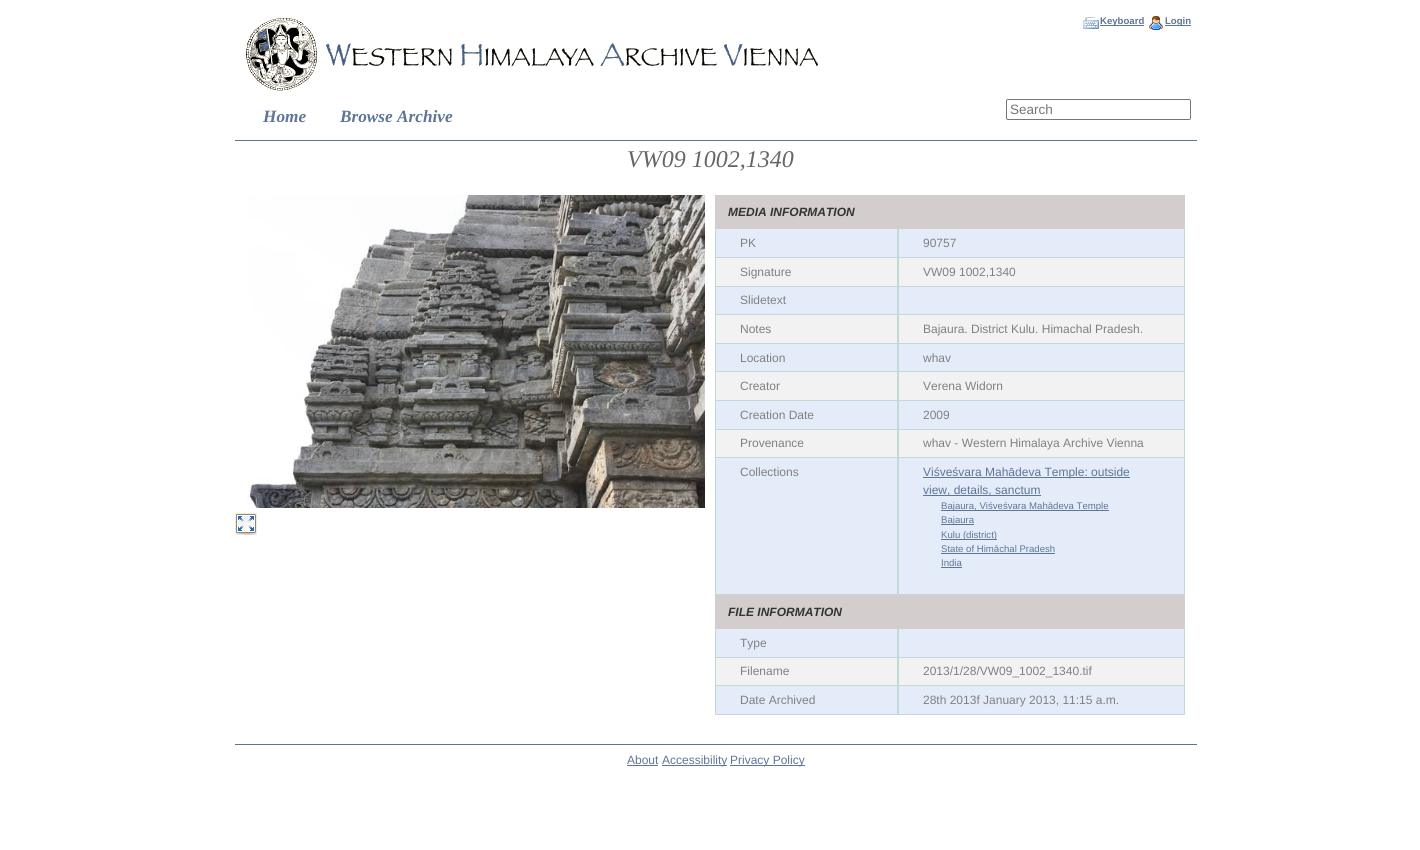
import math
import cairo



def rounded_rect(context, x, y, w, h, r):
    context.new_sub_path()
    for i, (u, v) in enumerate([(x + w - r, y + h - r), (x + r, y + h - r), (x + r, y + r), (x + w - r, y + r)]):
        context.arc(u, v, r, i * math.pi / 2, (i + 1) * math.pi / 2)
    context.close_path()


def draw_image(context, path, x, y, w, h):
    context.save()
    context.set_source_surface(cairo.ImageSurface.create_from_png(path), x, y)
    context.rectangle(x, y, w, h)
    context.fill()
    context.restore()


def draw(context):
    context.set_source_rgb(1, 1, 1)
    context.paint()
    context.set_source_rgb(94 / 255, 117 / 255, 150 / 255)
    context.rectangle(235, 140, 962, 1)
    context.fill()
    draw_image(context, "images/1.png", 246, 18, 572, 73)
    draw_image(context, "images/2.png", 1083, 17, 16, 12)
    context.rectangle(1100, 25, 44, 1)
    context.fill()
    draw_image(context, "images/3.png", 1149, 16, 14, 14)
    context.rectangle(1165, 25, 26, 1)
    context.fill()
    rounded_rect(context, 1006.5, 99.5, 184, 20, 1.5)
    context.set_source_rgb(118 / 255, 118 / 255, 118 / 255)
    context.set_line_width(1)
    context.stroke()
    draw_image(context, "images/4.png", 247, 195, 458, 313)
    context.set_source_rgb(243 / 255, 236 / 255, 220 / 255)
    context.rectangle(235, 513, 22, 22)
    context.fill()
    draw_image(context, "images/5.png", 236, 514, 20, 21)
    context.set_source_rgb(211 / 255, 205 / 255, 205 / 255)
    context.rectangle(715, 195, 470, 34)
    context.fill()
    context.set_source_rgb(229 / 255, 236 / 255, 249 / 255)
    context.rectangle(716, 229, 181, 28)
    context.fill()
    context.set_source_rgb(193 / 255, 218 / 255, 215 / 255)
    context.rectangle(897, 229, 1, 366)
    context.fill()
    context.rectangle(715, 257, 183, 1)
    context.fill()
    context.rectangle(715, 229, 1, 29)
    context.fill()
    context.set_source_rgb(229 / 255, 236 / 255, 249 / 255)
    context.rectangle(899, 229, 285, 28)
    context.fill()
    context.set_source_rgb(193 / 255, 218 / 255, 215 / 255)
    context.rectangle(1184, 229, 1, 366)
    context.fill()
    context.rectangle(898, 257, 287, 1)
    context.fill()
    context.rectangle(898, 229, 1, 29)
    context.fill()
    context.set_source_rgb(242 / 255, 242 / 255, 242 / 255)
    context.rectangle(716, 258, 181, 28)
    context.fill()
    context.set_source_rgb(193 / 255, 218 / 255, 215 / 255)
    context.rectangle(715, 286, 470, 1)
    context.fill()
    context.rectangle(715, 258, 1, 29)
    context.fill()
    context.set_source_rgb(242 / 255, 242 / 255, 242 / 255)
    context.rectangle(899, 258, 285, 28)
    context.fill()
    context.set_source_rgb(193 / 255, 218 / 255, 215 / 255)
    context.rectangle(898, 258, 1, 29)
    context.fill()
    context.set_source_rgb(229 / 255, 236 / 255, 249 / 255)
    context.rectangle(716, 287, 181, 27)
    context.fill()
    context.set_source_rgb(193 / 255, 218 / 255, 215 / 255)
    context.rectangle(715, 314, 470, 1)
    context.fill()
    context.rectangle(715, 287, 1, 28)
    context.fill()
    context.set_source_rgb(229 / 255, 236 / 255, 249 / 255)
    context.rectangle(899, 287, 285, 27)
    context.fill()
    context.set_source_rgb(193 / 255, 218 / 255, 215 / 255)
    context.rectangle(898, 287, 1, 28)
    context.fill()
    context.set_source_rgb(242 / 255, 242 / 255, 242 / 255)
    context.rectangle(716, 315, 181, 28)
    context.fill()
    context.set_source_rgb(193 / 255, 218 / 255, 215 / 255)
    context.rectangle(715, 343, 470, 1)
    context.fill()
    context.rectangle(715, 315, 1, 29)
    context.fill()
    context.set_source_rgb(242 / 255, 242 / 255, 242 / 255)
    context.rectangle(899, 315, 285, 28)
    context.fill()
    context.set_source_rgb(193 / 255, 218 / 255, 215 / 255)
    context.rectangle(898, 315, 1, 29)
    context.fill()
    context.set_source_rgb(229 / 255, 236 / 255, 249 / 255)
    context.rectangle(716, 344, 181, 27)
    context.fill()
    context.set_source_rgb(193 / 255, 218 / 255, 215 / 255)
    context.rectangle(715, 371, 470, 1)
    context.fill()
    context.rectangle(715, 344, 1, 28)
    context.fill()
    context.set_source_rgb(229 / 255, 236 / 255, 249 / 255)
    context.rectangle(899, 344, 285, 27)
    context.fill()
    context.set_source_rgb(193 / 255, 218 / 255, 215 / 255)
    context.rectangle(898, 344, 1, 28)
    context.fill()
    context.set_source_rgb(242 / 255, 242 / 255, 242 / 255)
    context.rectangle(716, 372, 181, 28)
    context.fill()
    context.set_source_rgb(193 / 255, 218 / 255, 215 / 255)
    context.rectangle(715, 400, 470, 1)
    context.fill()
    context.rectangle(715, 372, 1, 29)
    context.fill()
    context.set_source_rgb(242 / 255, 242 / 255, 242 / 255)
    context.rectangle(899, 372, 285, 28)
    context.fill()
    context.set_source_rgb(193 / 255, 218 / 255, 215 / 255)
    context.rectangle(898, 372, 1, 29)
    context.fill()
    context.set_source_rgb(229 / 255, 236 / 255, 249 / 255)
    context.rectangle(716, 401, 181, 28)
    context.fill()
    context.set_source_rgb(193 / 255, 218 / 255, 215 / 255)
    context.rectangle(715, 429, 470, 1)
    context.fill()
    context.rectangle(715, 401, 1, 29)
    context.fill()
    context.set_source_rgb(229 / 255, 236 / 255, 249 / 255)
    context.rectangle(899, 401, 285, 28)
    context.fill()
    context.set_source_rgb(193 / 255, 218 / 255, 215 / 255)
    context.rectangle(898, 401, 1, 29)
    context.fill()
    context.set_source_rgb(242 / 255, 242 / 255, 242 / 255)
    context.rectangle(716, 430, 181, 27)
    context.fill()
    context.set_source_rgb(193 / 255, 218 / 255, 215 / 255)
    context.rectangle(715, 457, 470, 1)
    context.fill()
    context.rectangle(715, 430, 1, 28)
    context.fill()
    context.set_source_rgb(242 / 255, 242 / 255, 242 / 255)
    context.rectangle(899, 430, 285, 27)
    context.fill()
    context.set_source_rgb(193 / 255, 218 / 255, 215 / 255)
    context.rectangle(898, 430, 1, 28)
    context.fill()
    context.set_source_rgb(229 / 255, 236 / 255, 249 / 255)
    context.rectangle(716, 458, 181, 136)
    context.fill()
    context.set_source_rgb(193 / 255, 218 / 255, 215 / 255)
    context.rectangle(715, 594, 470, 1)
    context.fill()
    context.rectangle(715, 458, 1, 137)
    context.fill()
    context.set_source_rgb(229 / 255, 236 / 255, 249 / 255)
    context.rectangle(899, 458, 285, 136)
    context.fill()
    context.set_source_rgb(193 / 255, 218 / 255, 215 / 255)
    context.rectangle(898, 458, 1, 137)
    context.fill()
    context.set_source_rgb(94 / 255, 117 / 255, 150 / 255)
    context.rectangle(923, 477, 207, 1)
    context.fill()
    context.rectangle(923, 495, 118, 1)
    context.fill()
    context.rectangle(941, 510, 168, 1)
    context.fill()
    context.rectangle(941, 524, 33, 1)
    context.fill()
    context.rectangle(941, 539, 56, 1)
    context.fill()
    context.rectangle(941, 553, 114, 1)
    context.fill()
    context.rectangle(941, 567, 21, 1)
    context.fill()
    context.set_source_rgb(211 / 255, 205 / 255, 205 / 255)
    context.rectangle(715, 595, 470, 34)
    context.fill()
    context.set_source_rgb(229 / 255, 236 / 255, 249 / 255)
    context.rectangle(716, 629, 181, 28)
    context.fill()
    context.set_source_rgb(193 / 255, 218 / 255, 215 / 255)
    context.rectangle(897, 629, 1, 86)
    context.fill()
    context.rectangle(715, 657, 183, 1)
    context.fill()
    context.rectangle(715, 629, 1, 29)
    context.fill()
    context.set_source_rgb(229 / 255, 236 / 255, 249 / 255)
    context.rectangle(899, 629, 285, 28)
    context.fill()
    context.set_source_rgb(193 / 255, 218 / 255, 215 / 255)
    context.rectangle(1184, 629, 1, 86)
    context.fill()
    context.rectangle(898, 657, 287, 1)
    context.fill()
    context.rectangle(898, 629, 1, 29)
    context.fill()
    context.set_source_rgb(242 / 255, 242 / 255, 242 / 255)
    context.rectangle(716, 658, 181, 27)
    context.fill()
    context.set_source_rgb(193 / 255, 218 / 255, 215 / 255)
    context.rectangle(715, 685, 470, 1)
    context.fill()
    context.rectangle(715, 658, 1, 28)
    context.fill()
    context.set_source_rgb(242 / 255, 242 / 255, 242 / 255)
    context.rectangle(899, 658, 285, 27)
    context.fill()
    context.set_source_rgb(193 / 255, 218 / 255, 215 / 255)
    context.rectangle(898, 658, 1, 28)
    context.fill()
    context.set_source_rgb(229 / 255, 236 / 255, 249 / 255)
    context.rectangle(716, 686, 181, 28)
    context.fill()
    context.set_source_rgb(193 / 255, 218 / 255, 215 / 255)
    context.rectangle(715, 714, 470, 1)
    context.fill()
    context.rectangle(715, 686, 1, 29)
    context.fill()
    context.set_source_rgb(229 / 255, 236 / 255, 249 / 255)
    context.rectangle(899, 686, 285, 28)
    context.fill()
    context.set_source_rgb(193 / 255, 218 / 255, 215 / 255)
    context.rectangle(898, 686, 1, 29)
    context.fill()
    context.set_source_rgb(94 / 255, 117 / 255, 150 / 255)
    context.rectangle(235, 744, 962, 1)
    context.fill()
    context.rectangle(627, 765, 31, 1)
    context.fill()
    context.rectangle(662, 765, 65, 1)
    context.fill()
    context.rectangle(730, 765, 75, 1)
    context.fill()
    context.select_font_face("Liberation Sans", cairo.FontSlant.NORMAL, cairo.FontWeight.BOLD)
    context.set_font_size(9.6)
    context.move_to(1100, 24)
    context.show_text("Keyboard")
    context.move_to(1165, 24)
    context.show_text("Login")
    context.select_font_face("Liberation Serif", cairo.FontSlant.ITALIC, cairo.FontWeight.BOLD)
    context.set_font_size(17.25)
    context.move_to(263, 122)
    context.show_text("Home")
    context.move_to(340, 122)
    context.show_text("Browse Archive")
    context.select_font_face("Liberation Sans")
    context.set_font_size(13.5)
    context.set_source_rgb(117 / 255, 117 / 255, 117 / 255)
    context.move_to(1010, 114)
    context.show_text("Search")
    context.select_font_face("Liberation Serif", cairo.FontSlant.ITALIC)
    context.set_font_size(24)
    context.set_source_rgb(102 / 255, 102 / 255, 102 / 255)
    context.move_to(627, 167)
    context.show_text("VW09 1002,1340")
    context.select_font_face("Liberation Sans", cairo.FontSlant.ITALIC, cairo.FontWeight.BOLD)
    context.set_font_size(12)
    context.set_source_rgb(51 / 255, 51 / 255, 51 / 255)
    context.move_to(728, 216)
    context.show_text("MEDIA INFORMATION")
    context.select_font_face("Liberation Sans")
    context.set_source_rgb(128 / 255, 128 / 255, 128 / 255)
    context.move_to(740, 247)
    context.show_text("PK")
    context.move_to(923, 247)
    context.show_text("90757")
    context.move_to(740, 276)
    context.show_text("Signature")
    context.move_to(923, 276)
    context.show_text("VW09 1002,1340")
    context.move_to(740, 304)
    context.show_text("Slidetext")
    context.move_to(740, 333)
    context.show_text("Notes")
    context.move_to(923, 333)
    context.show_text("Bajaura. District Kulu. Himachal Pradesh.")
    context.move_to(740, 362)
    context.show_text("Location")
    context.move_to(923, 362)
    context.show_text("whav")
    context.move_to(740, 390)
    context.show_text("Creator")
    context.move_to(923, 390)
    context.show_text("Verena Widorn")
    context.move_to(740, 419)
    context.show_text("Creation Date")
    context.move_to(923, 419)
    context.show_text("2009")
    context.move_to(740, 447)
    context.show_text("Provenance")
    context.move_to(923, 447)
    context.show_text("whav - Western Himalaya Archive Vienna")
    context.move_to(740, 476)
    context.show_text("Collections")
    context.set_source_rgb(94 / 255, 117 / 255, 150 / 255)
    context.move_to(923, 476)
    context.show_text("Viśveśvara Mahādeva Temple: outside")
    context.move_to(923, 494)
    context.show_text("view, details, sanctum")
    context.set_font_size(9.6)
    context.move_to(941, 509)
    context.show_text("Bajaura, Viśveśvara Mahādeva Temple")
    context.move_to(941, 523)
    context.show_text("Bajaura")
    context.move_to(941, 538)
    context.show_text("Kulu (district)")
    context.move_to(941, 552)
    context.show_text("State of Himāchal Pradesh")
    context.move_to(941, 566)
    context.show_text("India")
    context.select_font_face("Liberation Sans", cairo.FontSlant.ITALIC, cairo.FontWeight.BOLD)
    context.set_font_size(12)
    context.set_source_rgb(51 / 255, 51 / 255, 51 / 255)
    context.move_to(728, 616)
    context.show_text("FILE INFORMATION")
    context.select_font_face("Liberation Sans")
    context.set_source_rgb(128 / 255, 128 / 255, 128 / 255)
    context.move_to(740, 647)
    context.show_text("Type")
    context.move_to(740, 675)
    context.show_text("Filename")
    context.move_to(923, 675)
    context.show_text("2013/1/28/VW09_1002_1340.tif")
    context.move_to(740, 704)
    context.show_text("Date Archived")
    context.move_to(923, 704)
    context.show_text("28th 2013f January 2013, 11:15 a.m.")
    context.set_source_rgb(94 / 255, 117 / 255, 150 / 255)
    context.move_to(627, 764)
    context.show_text("About")
    context.move_to(662, 764)
    context.show_text("Accessibility")
    context.move_to(730, 764)
    context.show_text("Privacy Policy")


surface = cairo.ImageSurface(cairo.Format.RGB24, 1420, 850)
context = cairo.Context(surface)
options = cairo.FontOptions()
options.set_hint_metrics(cairo.HintMetrics.OFF)
options.set_hint_style(cairo.HintStyle.NONE)
context.set_font_options(options)
context.set_miter_limit(4)
draw(context)
surface.write_to_png("out.png")
